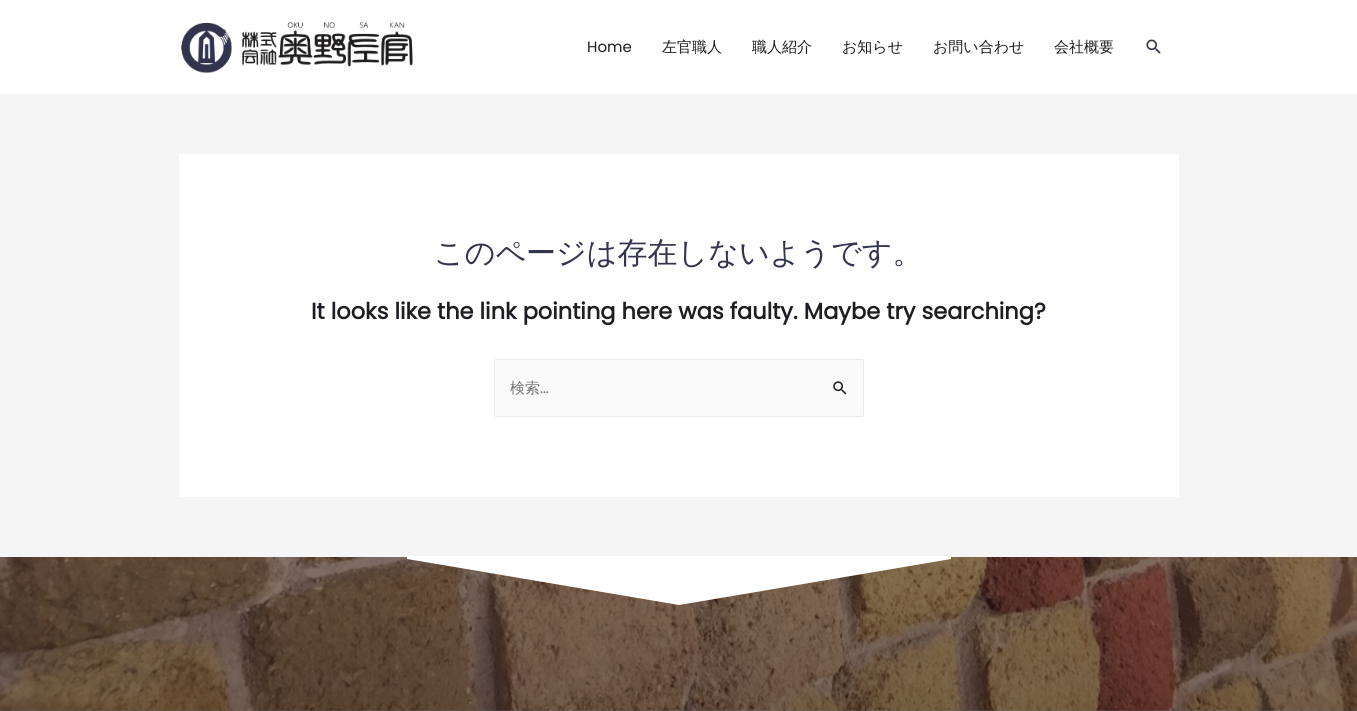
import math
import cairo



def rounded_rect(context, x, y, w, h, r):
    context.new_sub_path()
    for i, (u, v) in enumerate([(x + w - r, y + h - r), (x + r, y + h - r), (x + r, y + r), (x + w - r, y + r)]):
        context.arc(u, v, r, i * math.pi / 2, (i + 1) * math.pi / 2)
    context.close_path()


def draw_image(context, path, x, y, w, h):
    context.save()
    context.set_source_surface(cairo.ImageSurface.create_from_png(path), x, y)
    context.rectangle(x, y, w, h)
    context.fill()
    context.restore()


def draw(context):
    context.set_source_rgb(245 / 255, 245 / 255, 245 / 255)
    context.paint()
    context.set_source_rgb(1, 1, 1)
    context.rectangle(0, 0, 1357, 94)
    context.fill()
    draw_image(context, "images/1.png", 181, 22, 232, 52)
    draw_image(context, "images/2.png", 1146, 39, 15, 15)
    context.rectangle(179, 154, 1000, 343)
    context.fill()
    context.set_source_rgb(250 / 255, 250 / 255, 250 / 255)
    rounded_rect(context, 494.5, 359.5, 369, 57, 1.5)
    context.fill_preserve()
    context.set_source_rgb(234 / 255, 234 / 255, 234 / 255)
    context.set_line_width(1)
    context.stroke()
    draw_image(context, "images/3.png", 833, 381, 14, 14)
    draw_image(context, "images/4.png", 0, 557, 1357, 154)
    gradient = cairo.LinearGradient(679, 557, 679, 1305)
    gradient.add_color_stop_rgba(0, 29 / 255, 29 / 255, 35 / 255, 0.53)
    gradient.add_color_stop_rgba(1, 0, 0, 0, 0.77)
    context.set_source(gradient)
    context.rectangle(0, 557, 1357, 154)
    context.fill()
    context.set_source_rgb(1, 1, 1)
    context.new_path()
    context.move_to(679, 605)
    context.line_to(407, 559)
    context.line_to(407, 556)
    context.line_to(951, 556)
    context.line_to(951, 559)
    context.close_path()
    context.fill()
    context.select_font_face("Poppins")
    context.set_font_size(15)
    context.set_source_rgb(29 / 255, 29 / 255, 35 / 255)
    context.move_to(587, 52)
    context.show_text("Home")
    context.select_font_face("WenQuanYi Zen Hei Medium")
    context.move_to(662, 52)
    context.show_text("左官職人")
    context.move_to(752, 52)
    context.show_text("職人紹介")
    context.move_to(842, 52)
    context.show_text("お知らせ")
    context.move_to(933, 52)
    context.show_text("お問い合わせ")
    context.move_to(1054, 52)
    context.show_text("会社概要")
    context.set_font_size(30)
    context.set_source_rgb(51 / 255, 53 / 255, 78 / 255)
    context.move_to(434, 263)
    context.show_text("このページは存在しないようです。")
    context.select_font_face("Poppins", cairo.FontSlant.NORMAL, cairo.FontWeight.BOLD)
    context.set_font_size(22.5)
    context.set_source_rgb(29 / 255, 29 / 255, 35 / 255)
    context.move_to(311, 319)
    context.show_text("It looks like the link pointing here was faulty. Maybe try searching?")
    context.select_font_face("WenQuanYi Zen Hei Medium")
    context.set_font_size(15)
    context.set_source_rgb(117 / 255, 117 / 255, 117 / 255)
    context.move_to(510, 393)
    context.show_text("検索")
    context.select_font_face("Poppins")
    context.move_to(540, 393)
    context.show_text("…")


surface = cairo.ImageSurface(cairo.Format.RGB24, 1357, 711)
context = cairo.Context(surface)
options = cairo.FontOptions()
options.set_hint_metrics(cairo.HintMetrics.OFF)
options.set_hint_style(cairo.HintStyle.NONE)
context.set_font_options(options)
context.set_miter_limit(4)
draw(context)
surface.write_to_png("out.png")
